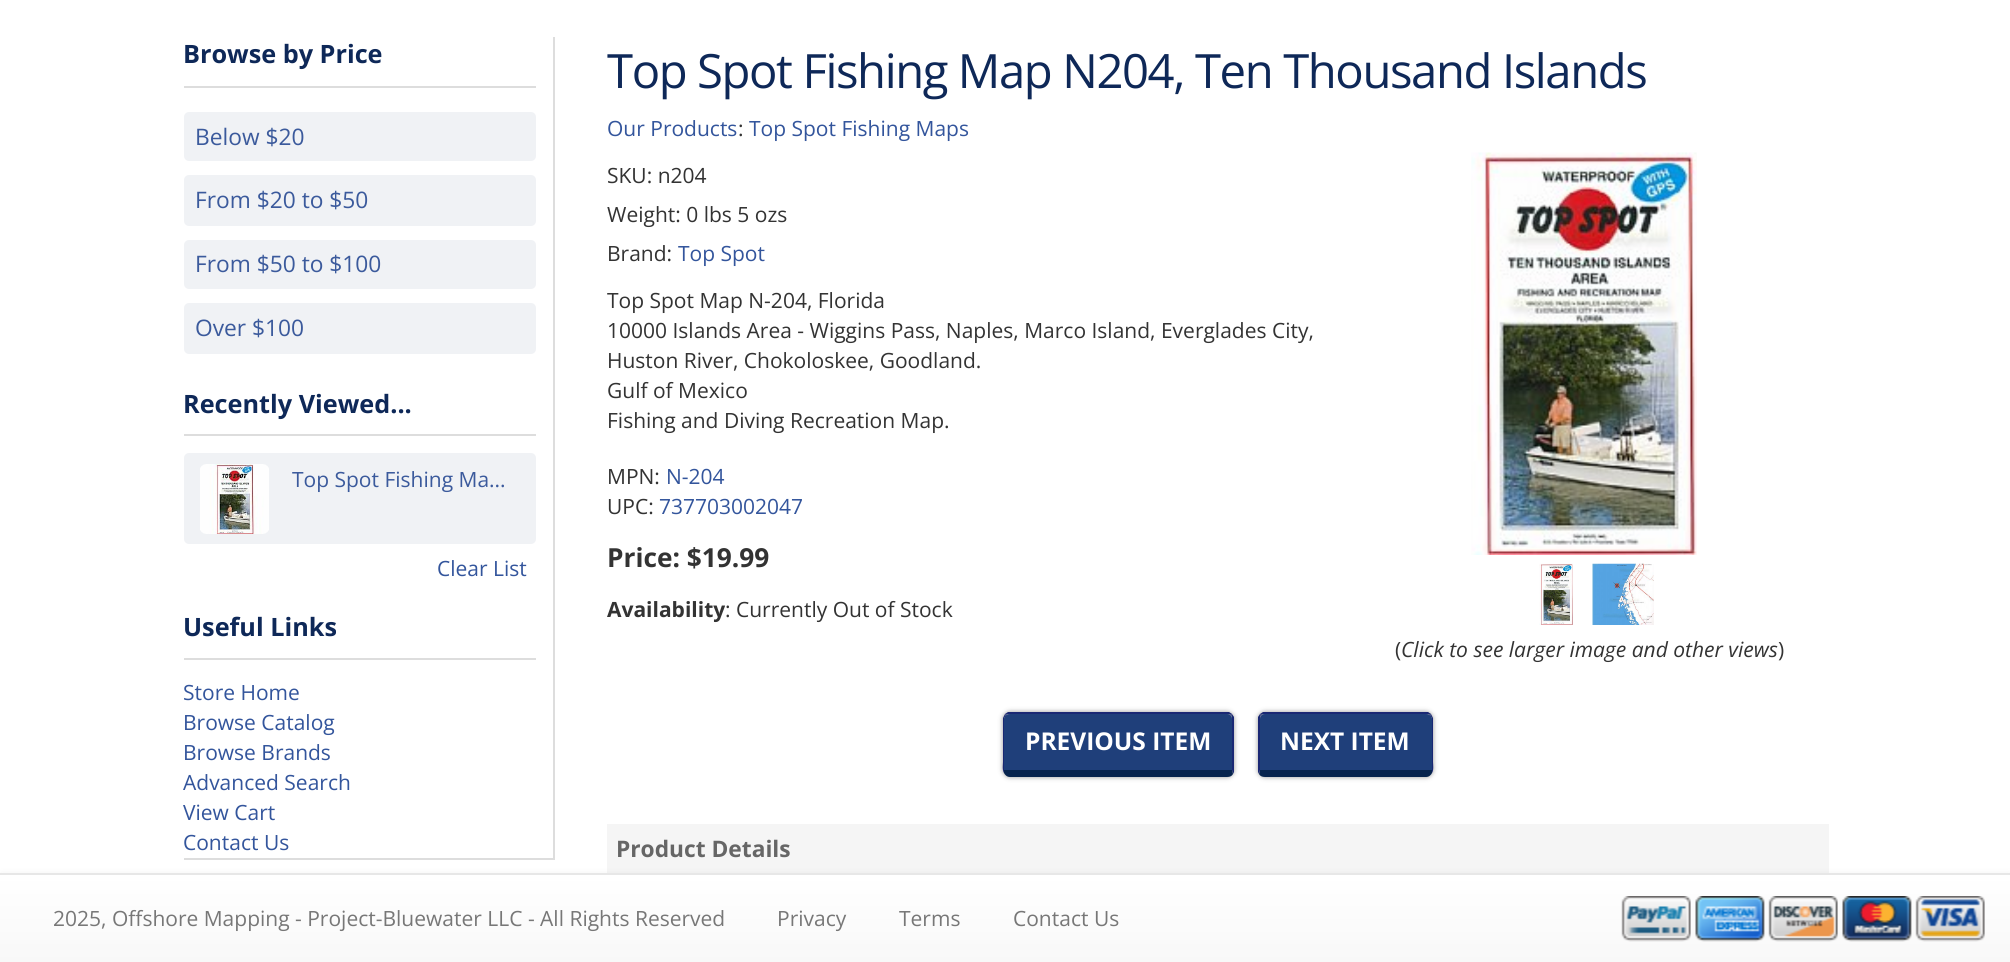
import math
import cairo



def draw_spaced(context, x, y, s, letter, word):
    context.move_to(x, y)
    for ch in s:
        context.show_text(ch)
        context.rel_move_to(letter + word * (ch == ' '), 0)


def rounded_rect(context, x, y, w, h, r):
    context.new_sub_path()
    for i, (u, v) in enumerate([(x + w - r, y + h - r), (x + r, y + h - r), (x + r, y + r), (x + w - r, y + r)]):
        context.arc(u, v, r, i * math.pi / 2, (i + 1) * math.pi / 2)
    context.close_path()


def draw_shadow(context, x, y, w, h, r, blur, alpha):
    context.push_group_with_content(cairo.Content.ALPHA)
    context.set_operator(cairo.Operator.SOURCE)
    for i in range(15, -16, -2):
        e = blur * i / 6
        if min(w, h) + 2 * e > 0:
            context.set_source_rgba(0, 0, 0, alpha * math.erfc((i - 1) / 8.5) / 2)
            rounded_rect(context, x - e, y - e, w + 2 * e, h + 2 * e, max(0, min(r + e + blur * .6, min(w, h) / 2 + e)))
            context.fill()
    context.mask(context.pop_group())


def draw_image(context, path, x, y, w, h):
    context.save()
    context.set_source_surface(cairo.ImageSurface.create_from_png(path), x, y)
    context.rectangle(x, y, w, h)
    context.fill()
    context.restore()


def draw(context):
    context.set_source_rgb(1, 1, 1)
    context.paint()
    context.set_source_rgb(221 / 255, 221 / 255, 221 / 255)
    context.rectangle(553, 37, 2, 822)
    context.fill()
    context.rectangle(184, 858, 371, 2)
    context.fill()
    context.rectangle(184, 86, 352, 2)
    context.fill()
    context.set_source_rgb(240 / 255, 242 / 255, 245 / 255)
    rounded_rect(context, 184, 112, 352, 49, 5)
    context.fill()
    rounded_rect(context, 184, 175, 352, 51, 5)
    context.fill()
    rounded_rect(context, 184, 240, 352, 49, 5)
    context.fill()
    rounded_rect(context, 184, 303, 352, 51, 5)
    context.fill()
    context.set_source_rgb(221 / 255, 221 / 255, 221 / 255)
    context.rectangle(184, 434, 352, 2)
    context.fill()
    context.set_source_rgb(240 / 255, 242 / 255, 245 / 255)
    rounded_rect(context, 184, 453, 352, 91, 5)
    context.fill()
    draw_image(context, "images/1.png", 200, 464, 69, 70)
    context.set_source_rgb(221 / 255, 221 / 255, 221 / 255)
    context.rectangle(184, 658, 352, 2)
    context.fill()
    draw_image(context, "images/2.png", 1471, 152, 226, 403)
    draw_image(context, "images/3.png", 1539, 563, 34, 62)
    draw_image(context, "images/4.png", 1592, 563, 62, 62)
    context.set_source_rgb(0, 0, 0)
    draw_shadow(context, 1003, 712, 231, 65, 7, 2.5, 0.42)
    context.set_source_rgb(31 / 255, 63 / 255, 122 / 255)
    context.new_path()
    context.move_to(1010, 714)
    context.line_to(1227, 714)
    context.curve_to(1230, 714, 1232, 716, 1232, 719)
    context.line_to(1232, 770)
    context.line_to(1004, 770)
    context.line_to(1004, 719)
    context.curve_to(1004, 716, 1007, 714, 1010, 714)
    context.close_path()
    context.fill()
    context.set_source_rgb(26 / 255, 40 / 255, 116 / 255)
    context.new_path()
    context.move_to(1010, 714)
    context.curve_to(1008, 714, 1007, 714, 1006, 715)
    context.line_to(1005, 714)
    context.line_to(1008, 712)
    context.line_to(1229, 712)
    context.line_to(1232, 714)
    context.line_to(1231, 715)
    context.curve_to(1230, 714, 1228, 714, 1227, 714)
    context.close_path()
    context.fill()
    context.new_path()
    context.move_to(1234, 772)
    context.line_to(1233, 774)
    context.line_to(1232, 770)
    context.line_to(1232, 719)
    context.curve_to(1232, 718, 1232, 716, 1231, 715)
    context.line_to(1232, 714)
    context.line_to(1234, 717)
    context.close_path()
    context.fill()
    context.set_source_rgb(7 / 255, 36 / 255, 78 / 255)
    context.new_path()
    context.move_to(1010, 777)
    context.line_to(1227, 777)
    context.curve_to(1230, 777, 1232, 776, 1233, 774)
    context.line_to(1232, 770)
    context.line_to(1004, 770)
    context.line_to(1004, 773)
    context.curve_to(1005, 775, 1007, 777, 1010, 777)
    context.close_path()
    context.fill()
    context.set_source_rgb(26 / 255, 40 / 255, 116 / 255)
    context.new_path()
    context.move_to(1004, 773)
    context.curve_to(1002, 770, 1003, 764, 1003, 762)
    context.line_to(1003, 718)
    context.line_to(1005, 714)
    context.line_to(1006, 715)
    context.line_to(1004, 718)
    context.line_to(1004, 770)
    context.close_path()
    context.fill()
    context.set_source_rgb(0, 0, 0)
    draw_shadow(context, 1258, 712, 175, 65, 7, 2.5, 0.42)
    context.set_source_rgb(31 / 255, 63 / 255, 122 / 255)
    context.new_path()
    context.move_to(1265, 714)
    context.line_to(1426, 714)
    context.curve_to(1429, 714, 1432, 716, 1432, 719)
    context.line_to(1432, 770)
    context.line_to(1260, 770)
    context.line_to(1260, 719)
    context.curve_to(1260, 716, 1262, 714, 1265, 714)
    context.close_path()
    context.fill()
    context.set_source_rgb(26 / 255, 40 / 255, 116 / 255)
    context.new_path()
    context.move_to(1265, 714)
    context.curve_to(1264, 714, 1262, 714, 1261, 715)
    context.line_to(1260, 714)
    context.line_to(1263, 712)
    context.line_to(1428, 712)
    context.line_to(1431, 714)
    context.line_to(1430, 715)
    context.curve_to(1429, 714, 1428, 714, 1426, 714)
    context.close_path()
    context.fill()
    context.new_path()
    context.move_to(1431, 714)
    context.line_to(1433, 718)
    context.line_to(1433, 762)
    context.curve_to(1433, 764, 1434, 770, 1432, 773)
    context.line_to(1432, 770)
    context.line_to(1432, 718)
    context.line_to(1430, 715)
    context.close_path()
    context.fill()
    context.set_source_rgb(7 / 255, 36 / 255, 78 / 255)
    context.new_path()
    context.move_to(1265, 777)
    context.line_to(1426, 777)
    context.curve_to(1429, 777, 1431, 775, 1432, 773)
    context.line_to(1432, 770)
    context.line_to(1260, 770)
    context.line_to(1259, 774)
    context.curve_to(1260, 776, 1262, 777, 1265, 777)
    context.close_path()
    context.fill()
    context.set_source_rgb(26 / 255, 40 / 255, 116 / 255)
    context.new_path()
    context.move_to(1258, 717)
    context.line_to(1260, 714)
    context.line_to(1261, 715)
    context.curve_to(1260, 716, 1260, 718, 1260, 719)
    context.line_to(1260, 770)
    context.line_to(1259, 774)
    context.line_to(1258, 772)
    context.close_path()
    context.fill()
    context.set_source_rgb(245 / 255, 245 / 255, 245 / 255)
    context.rectangle(607, 824, 1222, 49)
    context.fill()
    context.set_source_rgb(0, 0, 0)
    draw_shadow(context, 0, 875, 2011, 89, 0, 4.5, 0.07)
    gradient = cairo.LinearGradient(1005, 875, 1005, 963)
    gradient.add_color_stop_rgba(0, 1, 1, 1, 1)
    gradient.add_color_stop_rgba(1, 248 / 255, 248 / 255, 248 / 255, 1)
    context.set_source(gradient)
    context.rectangle(0, 875, 2010, 87)
    context.fill()
    context.set_source_rgb(231 / 255, 231 / 255, 231 / 255)
    context.rectangle(0, 873, 2010, 2)
    context.fill()
    draw_image(context, "images/5.png", 1621, 896, 70, 46)
    draw_image(context, "images/6.png", 1695, 896, 70, 46)
    draw_image(context, "images/7.png", 1768, 896, 70, 46)
    draw_image(context, "images/8.png", 1842, 896, 70, 46)
    draw_image(context, "images/9.png", 1915, 896, 70, 46)
    context.select_font_face("Open Sans", cairo.FontSlant.NORMAL, cairo.FontWeight.BOLD)
    context.set_font_size(25.25)
    context.set_source_rgb(14 / 255, 40 / 255, 88 / 255)
    context.move_to(183, 63)
    context.show_text("Browse by Price")
    context.select_font_face("Open Sans")
    context.set_font_size(22.75)
    context.set_source_rgb(59 / 255, 90 / 255, 156 / 255)
    context.move_to(195, 145)
    context.show_text("Below $20")
    context.move_to(195, 208)
    context.show_text("From $20 to $50")
    context.move_to(195, 272)
    context.show_text("From $50 to $100")
    context.move_to(195, 336)
    context.show_text("Over $100")
    context.select_font_face("Open Sans", cairo.FontSlant.NORMAL, cairo.FontWeight.BOLD)
    context.set_font_size(25.25)
    context.set_source_rgb(14 / 255, 40 / 255, 88 / 255)
    context.move_to(183, 413)
    context.show_text("Recently Viewed...")
    context.select_font_face("Open Sans")
    context.set_font_size(21)
    context.set_source_rgb(59 / 255, 90 / 255, 156 / 255)
    context.move_to(292, 487)
    context.show_text("Top Spot Fishing Ma...")
    context.set_source_rgb(51 / 255, 85 / 255, 156 / 255)
    context.move_to(437, 576)
    context.show_text("Clear List")
    context.select_font_face("Open Sans", cairo.FontSlant.NORMAL, cairo.FontWeight.BOLD)
    context.set_font_size(25.25)
    context.set_source_rgb(14 / 255, 40 / 255, 88 / 255)
    context.move_to(183, 636)
    context.show_text("Useful Links")
    context.select_font_face("Open Sans")
    context.set_font_size(21)
    context.set_source_rgb(51 / 255, 85 / 255, 156 / 255)
    context.move_to(183, 700)
    context.show_text("Store Home")
    context.move_to(183, 730)
    context.show_text("Browse Catalog")
    context.move_to(183, 760)
    context.show_text("Browse Brands")
    context.move_to(183, 790)
    context.show_text("Advanced Search")
    context.move_to(183, 820)
    context.show_text("View Cart")
    context.move_to(183, 850)
    context.show_text("Contact Us")
    context.set_font_size(47.25)
    context.set_source_rgb(14 / 255, 40 / 255, 88 / 255)
    draw_spaced(context, 607, 88, "Top Spot Fishing Map N204, Ten Thousand Islands", -1.4, 0)
    context.set_font_size(21)
    context.set_source_rgb(51 / 255, 85 / 255, 156 / 255)
    context.move_to(607, 136)
    context.show_text("Our Products")
    context.set_source_rgb(51 / 255, 51 / 255, 51 / 255)
    context.move_to(738, 136)
    context.show_text(":")
    context.set_source_rgb(51 / 255, 85 / 255, 156 / 255)
    context.move_to(749, 136)
    context.show_text("Top Spot Fishing Maps")
    context.set_source_rgb(51 / 255, 51 / 255, 51 / 255)
    context.move_to(607, 183)
    context.show_text("SKU: n204")
    context.move_to(607, 222)
    context.show_text("Weight: 0 lbs 5 ozs")
    context.move_to(607, 261)
    context.show_text("Brand:")
    context.set_source_rgb(51 / 255, 85 / 255, 156 / 255)
    context.move_to(678, 261)
    context.show_text("Top Spot")
    context.set_source_rgb(51 / 255, 51 / 255, 51 / 255)
    context.move_to(607, 308)
    context.show_text("Top Spot Map N-204, Florida")
    context.move_to(607, 338)
    context.show_text("10000 Islands Area - Wiggins Pass, Naples, Marco Island, Everglades City,")
    context.move_to(607, 368)
    context.show_text("Huston River, Chokoloskee, Goodland.")
    context.move_to(607, 398)
    context.show_text("Gulf of Mexico")
    context.move_to(607, 428)
    context.show_text("Fishing and Diving Recreation Map.")
    context.move_to(607, 484)
    context.show_text("MPN:")
    context.set_source_rgb(51 / 255, 85 / 255, 156 / 255)
    context.move_to(666, 484)
    context.show_text("N-204")
    context.set_source_rgb(51 / 255, 51 / 255, 51 / 255)
    context.move_to(607, 514)
    context.show_text("UPC:")
    context.set_source_rgb(51 / 255, 85 / 255, 156 / 255)
    context.move_to(659, 514)
    context.show_text("737703002047")
    context.select_font_face("Open Sans", cairo.FontSlant.NORMAL, cairo.FontWeight.BOLD)
    context.set_font_size(26.25)
    context.set_source_rgb(51 / 255, 51 / 255, 51 / 255)
    context.move_to(607, 567)
    context.show_text("Price: $19.99")
    context.set_font_size(21)
    context.move_to(607, 617)
    context.show_text("Availability")
    context.select_font_face("Open Sans")
    context.move_to(725, 617)
    context.show_text(": Currently Out of Stock")
    context.move_to(1395, 657)
    context.show_text("(")
    context.select_font_face("Open Sans", cairo.FontSlant.ITALIC)
    context.move_to(1401, 657)
    context.show_text("Click to see larger image and other views")
    context.select_font_face("Open Sans")
    context.move_to(1778, 657)
    context.show_text(")")
    context.select_font_face("Open Sans", cairo.FontSlant.NORMAL, cairo.FontWeight.BOLD)
    context.set_font_size(24.5)
    context.set_source_rgb(1, 1, 1)
    context.move_to(1025, 750)
    context.show_text("PREVIOUS ITEM")
    context.move_to(1280, 750)
    context.show_text("NEXT ITEM")
    context.set_font_size(22.75)
    context.set_source_rgb(102 / 255, 102 / 255, 102 / 255)
    context.move_to(616, 857)
    context.show_text("Product Details")
    context.select_font_face("Open Sans")
    context.set_font_size(21)
    context.set_source_rgb(119 / 255, 119 / 255, 119 / 255)
    context.move_to(53, 926)
    context.show_text("2025, Offshore Mapping - Project-Bluewater LLC - All Rights Reserved")
    context.move_to(777, 926)
    context.show_text("Privacy")
    context.move_to(899, 926)
    context.show_text("Terms")
    context.move_to(1013, 926)
    context.show_text("Contact Us")


surface = cairo.ImageSurface(cairo.Format.RGB24, 2010, 962)
context = cairo.Context(surface)
options = cairo.FontOptions()
options.set_hint_metrics(cairo.HintMetrics.OFF)
options.set_hint_style(cairo.HintStyle.NONE)
context.set_font_options(options)
context.set_miter_limit(4)
draw(context)
surface.write_to_png("out.png")
